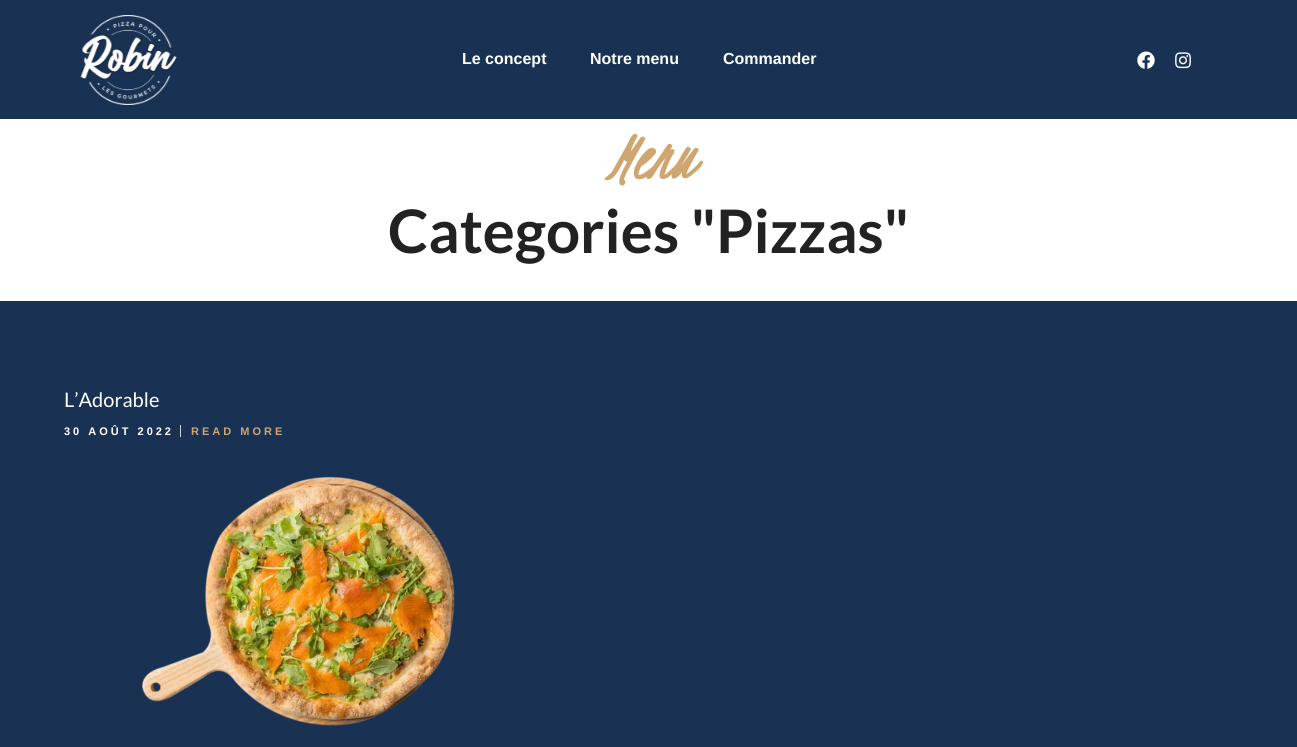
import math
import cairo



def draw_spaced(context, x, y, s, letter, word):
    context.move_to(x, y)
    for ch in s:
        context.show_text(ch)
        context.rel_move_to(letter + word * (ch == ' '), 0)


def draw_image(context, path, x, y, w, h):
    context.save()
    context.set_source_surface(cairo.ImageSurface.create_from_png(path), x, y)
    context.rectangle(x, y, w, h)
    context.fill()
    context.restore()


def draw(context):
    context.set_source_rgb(25 / 255, 49 / 255, 83 / 255)
    context.paint()
    draw_image(context, "images/1.png", 80, 15, 98, 90)
    draw_image(context, "images/2.png", 1137, 51, 18, 18)
    draw_image(context, "images/3.png", 1175, 52, 16, 17)
    context.set_source_rgb(1, 1, 1)
    context.rectangle(0, 119, 1297, 182)
    context.fill()
    context.set_source_rgb(209 / 255, 209 / 255, 209 / 255)
    context.rectangle(180, 425, 1, 12)
    context.fill()
    draw_image(context, "images/4.png", 142, 476, 313, 250)
    context.select_font_face("Liberation Sans", cairo.FontSlant.NORMAL, cairo.FontWeight.BOLD)
    context.set_font_size(16)
    context.set_source_rgb(1, 1, 1)
    context.move_to(462, 64)
    context.show_text("Le concept")
    context.move_to(590, 64)
    context.show_text("Notre menu")
    context.move_to(723, 64)
    context.show_text("Commander")
    context.select_font_face("Kristi", cairo.FontSlant.ITALIC, cairo.FontWeight.BOLD)
    context.set_font_size(70)
    context.set_source_rgb(207 / 255, 166 / 255, 112 / 255)
    context.move_to(606, 178)
    context.show_text("Menu")
    context.select_font_face("Lato", cairo.FontSlant.NORMAL, cairo.FontWeight.BOLD)
    context.set_font_size(60)
    context.set_source_rgb(34 / 255, 34 / 255, 34 / 255)
    context.move_to(388, 253)
    context.show_text("Categories \"Pizzas\"")
    context.select_font_face("Lato")
    context.set_font_size(20)
    context.set_source_rgb(1, 1, 1)
    context.move_to(64, 407)
    context.show_text("L’Adorable")
    context.select_font_face("Liberation Sans", cairo.FontSlant.NORMAL, cairo.FontWeight.BOLD)
    context.set_font_size(11)
    draw_spaced(context, 64, 435, "30 AOÛT 2022", 3, 0)
    context.set_source_rgb(207 / 255, 166 / 255, 112 / 255)
    draw_spaced(context, 191, 435, "READ MORE", 3, 0)


surface = cairo.ImageSurface(cairo.Format.RGB24, 1297, 747)
context = cairo.Context(surface)
options = cairo.FontOptions()
options.set_hint_metrics(cairo.HintMetrics.OFF)
options.set_hint_style(cairo.HintStyle.NONE)
context.set_font_options(options)
context.set_miter_limit(4)
draw(context)
surface.write_to_png("out.png")
